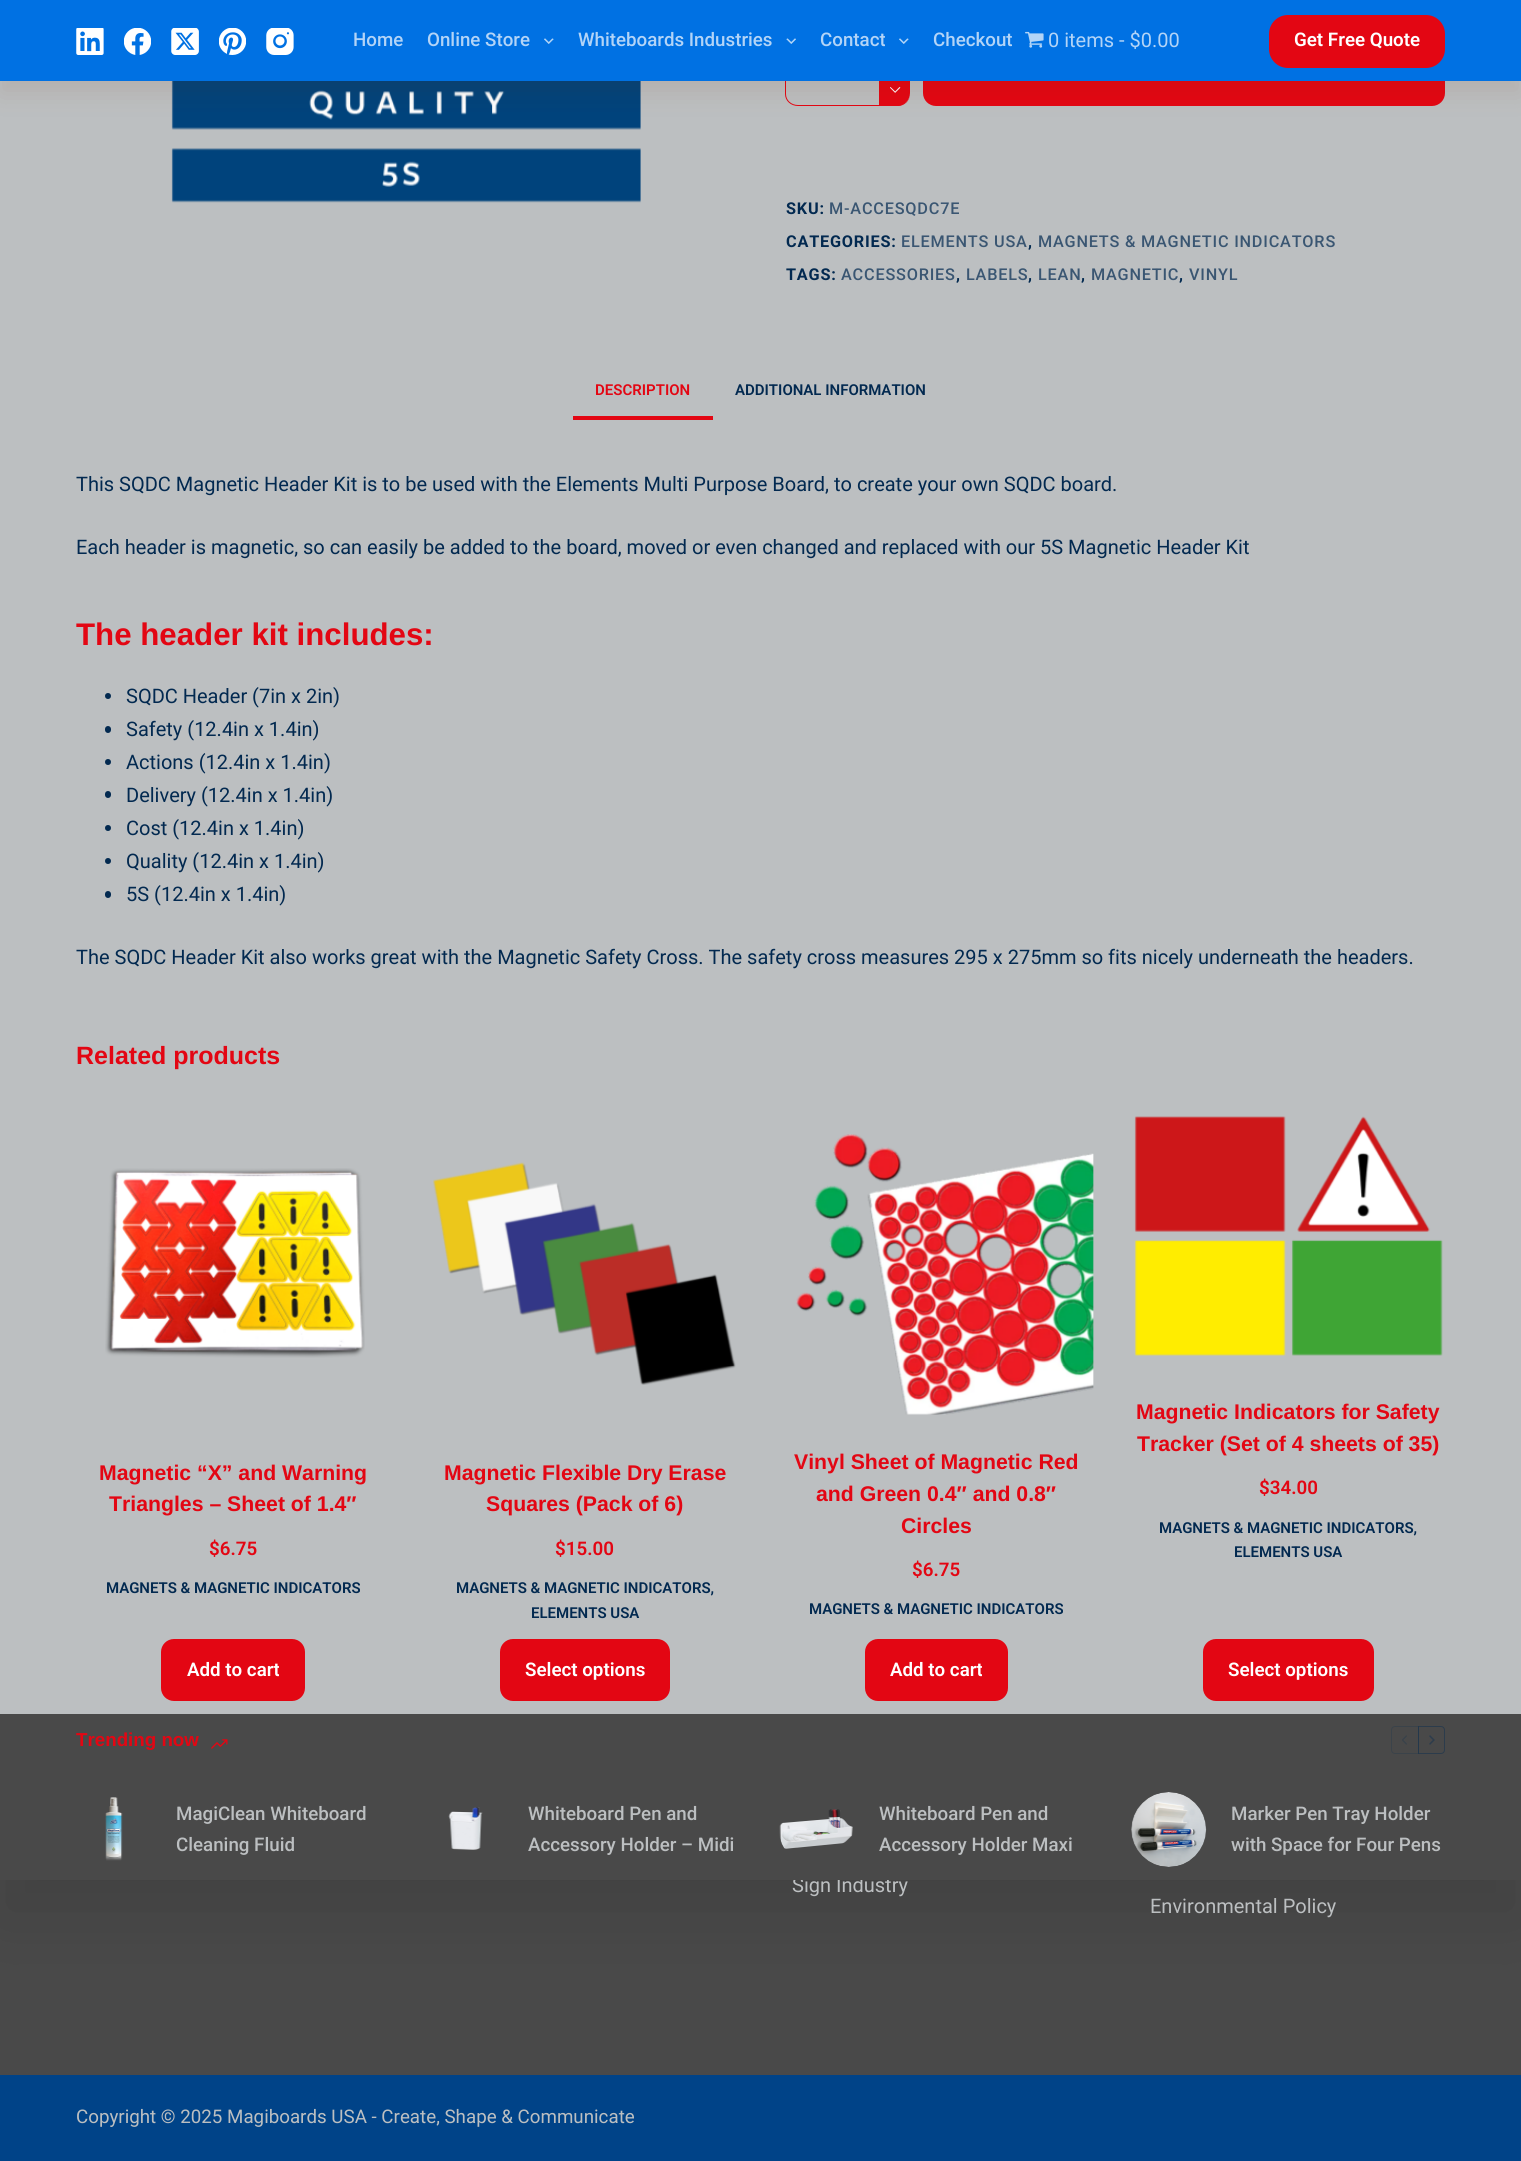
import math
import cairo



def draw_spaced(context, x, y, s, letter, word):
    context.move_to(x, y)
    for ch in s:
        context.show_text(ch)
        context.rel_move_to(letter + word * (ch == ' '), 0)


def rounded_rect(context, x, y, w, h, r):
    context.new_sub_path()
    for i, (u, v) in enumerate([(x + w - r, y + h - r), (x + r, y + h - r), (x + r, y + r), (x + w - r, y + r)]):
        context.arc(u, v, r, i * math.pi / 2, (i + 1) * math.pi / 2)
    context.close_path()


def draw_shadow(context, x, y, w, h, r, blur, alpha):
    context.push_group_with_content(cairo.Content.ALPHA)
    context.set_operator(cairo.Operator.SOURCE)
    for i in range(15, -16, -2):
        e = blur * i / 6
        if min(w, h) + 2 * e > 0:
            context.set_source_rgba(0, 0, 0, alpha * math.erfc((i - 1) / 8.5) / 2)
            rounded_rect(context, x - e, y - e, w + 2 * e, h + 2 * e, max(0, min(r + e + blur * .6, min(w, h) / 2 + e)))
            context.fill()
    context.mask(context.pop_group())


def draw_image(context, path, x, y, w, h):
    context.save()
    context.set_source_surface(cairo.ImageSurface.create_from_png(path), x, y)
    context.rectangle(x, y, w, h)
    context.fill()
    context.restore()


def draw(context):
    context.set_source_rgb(73 / 255, 73 / 255, 73 / 255)
    context.paint()
    context.set_source_rgb(0, 0, 0)
    draw_shadow(context, 0, -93, 1521, 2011, 0, 31, 0.1)
    context.set_source_rgb(188 / 255, 191 / 255, 193 / 255)
    context.rectangle(0, 81, 1521, 1633)
    context.fill()
    draw_image(context, "images/9.png", 171, 81, 470, 122)
    context.set_source_rgb(227 / 255, 6 / 255, 19 / 255)
    context.set_fill_rule(cairo.FillRule.EVEN_ODD)
    context.new_path()
    context.move_to(798, 38)
    context.line_to(898, 38)
    context.curve_to(904, 38, 910, 43, 910, 50)
    context.line_to(910, 94)
    context.curve_to(910, 101, 904, 106, 898, 106)
    context.line_to(798, 106)
    context.curve_to(791, 106, 785, 101, 785, 94)
    context.line_to(785, 50)
    context.curve_to(785, 43, 791, 38, 798, 38)
    context.close_path()
    context.move_to(798, 39)
    context.line_to(898, 39)
    context.curve_to(904, 39, 910, 44, 910, 50)
    context.line_to(910, 94)
    context.curve_to(910, 100, 904, 105, 898, 105)
    context.line_to(798, 105)
    context.curve_to(791, 105, 786, 100, 786, 94)
    context.line_to(786, 50)
    context.curve_to(786, 44, 791, 39, 798, 39)
    context.close_path()
    context.fill()
    context.new_path()
    context.move_to(879, 73)
    context.line_to(910, 73)
    context.line_to(910, 93)
    context.curve_to(910, 100, 904, 106, 897, 106)
    context.line_to(879, 106)
    context.close_path()
    context.fill()
    draw_image(context, "images/10.png", 890, 87, 11, 6)
    rounded_rect(context, 923, 38, 522, 68, 13)
    context.fill()
    context.set_source_rgb(106 / 255, 38 / 255, 1 / 255)
    draw_shadow(context, 0, 13, 1521, 81, 0, 12.5, 0.1)
    context.set_source_rgb(0, 113 / 255, 227 / 255)
    context.rectangle(0, 0, 1521, 81)
    context.fill()
    draw_image(context, "images/1.png", 76, 28, 28, 27)
    draw_image(context, "images/2.png", 124, 28, 27, 27)
    draw_image(context, "images/3.png", 171, 28, 28, 27)
    draw_image(context, "images/4.png", 219, 28, 27, 27)
    draw_image(context, "images/5.png", 266, 28, 28, 27)
    draw_image(context, "images/6.png", 544, 38, 10, 6)
    draw_image(context, "images/7.png", 786, 38, 10, 6)
    draw_image(context, "images/6.png", 899, 38, 10, 6)
    draw_image(context, "images/8.png", 1025, 31, 19, 17)
    context.set_source_rgb(227 / 255, 6 / 255, 19 / 255)
    rounded_rect(context, 1269, 15, 176, 53, 19)
    context.fill()
    context.rectangle(573, 416, 140, 4)
    context.fill()
    context.set_source_rgb(2 / 255, 41 / 255, 80 / 255)
    context.arc(108, 696, 3, 0, 2 * math.pi)
    context.fill()
    rounded_rect(context, 105, 726, 6, 7, 3)
    context.fill()
    context.arc(108, 762, 3, 0, 2 * math.pi)
    context.fill()
    rounded_rect(context, 105, 791, 6, 7, 3)
    context.fill()
    context.arc(108, 828, 3, 0, 2 * math.pi)
    context.fill()
    context.arc(108, 861, 3, 0, 2 * math.pi)
    context.fill()
    rounded_rect(context, 105, 891, 6, 7, 3)
    context.fill()
    draw_image(context, "images/11.png", 105, 1168, 260, 190)
    context.set_source_rgb(227 / 255, 6 / 255, 19 / 255)
    rounded_rect(context, 161, 1639, 144, 62, 13)
    context.fill()
    draw_image(context, "images/12.png", 433, 1162, 303, 223)
    rounded_rect(context, 500, 1639, 170, 62, 13)
    context.fill()
    draw_image(context, "images/13.png", 796, 1134, 298, 281)
    rounded_rect(context, 865, 1639, 143, 62, 13)
    context.fill()
    draw_image(context, "images/14.png", 1134, 1116, 309, 240)
    rounded_rect(context, 1203, 1639, 171, 62, 13)
    context.fill()
    context.set_source_rgb(0, 67 / 255, 136 / 255)
    context.rectangle(0, 2075, 1521, 86)
    context.fill()
    context.select_font_face("Roboto Medium")
    context.set_font_size(18.75)
    context.set_source_rgb(179 / 255, 212 / 255, 247 / 255)
    context.move_to(353, 46)
    context.show_text("Home")
    context.move_to(427, 46)
    context.show_text("Online Store")
    context.move_to(578, 46)
    context.show_text("Whiteboards Industries")
    context.move_to(820, 46)
    context.show_text("Contact")
    context.move_to(933, 46)
    context.show_text("Checkout")
    context.select_font_face("Roboto")
    context.set_font_size(20)
    context.move_to(1048, 47)
    context.show_text("0 items - $0.00")
    context.select_font_face("Roboto SemiBold")
    context.set_font_size(18.75)
    context.set_source_rgb(1, 1, 1)
    context.move_to(1294, 46)
    context.show_text("Get Free Quote")
    context.select_font_face("Roboto", cairo.FontSlant.NORMAL, cairo.FontWeight.BOLD)
    context.set_font_size(16.25)
    context.set_source_rgb(2 / 255, 41 / 255, 80 / 255)
    draw_spaced(context, 786, 214, "SKU:", 0.8, 0)
    context.select_font_face("Roboto Medium")
    context.set_source_rgb(58 / 255, 86 / 255, 114 / 255)
    draw_spaced(context, 829, 214, "M-ACCESQDC7E", 0.8, 0)
    context.select_font_face("Roboto", cairo.FontSlant.NORMAL, cairo.FontWeight.BOLD)
    context.set_source_rgb(2 / 255, 41 / 255, 80 / 255)
    draw_spaced(context, 786, 247, "CATEGORIES:", 0.8, 0)
    context.select_font_face("Roboto Medium")
    context.set_source_rgb(58 / 255, 86 / 255, 114 / 255)
    draw_spaced(context, 901, 247, "ELEMENTS USA", 0.8, 0)
    context.select_font_face("Roboto", cairo.FontSlant.NORMAL, cairo.FontWeight.BOLD)
    context.set_source_rgb(2 / 255, 41 / 255, 80 / 255)
    draw_spaced(context, 1028, 247, ",", 0.8, 0)
    context.select_font_face("Roboto Medium")
    context.set_source_rgb(58 / 255, 86 / 255, 114 / 255)
    draw_spaced(context, 1038, 247, "MAGNETS & MAGNETIC INDICATORS", 0.8, 0)
    context.select_font_face("Roboto", cairo.FontSlant.NORMAL, cairo.FontWeight.BOLD)
    context.set_source_rgb(2 / 255, 41 / 255, 80 / 255)
    draw_spaced(context, 786, 280, "TAGS:", 0.8, 0)
    context.select_font_face("Roboto Medium")
    context.set_source_rgb(58 / 255, 86 / 255, 114 / 255)
    draw_spaced(context, 841, 280, "ACCESSORIES", 0.8, 0)
    draw_spaced(context, 966, 280, "LABELS", 0.8, 0)
    draw_spaced(context, 1038, 280, "LEAN", 0.8, 0)
    draw_spaced(context, 1091, 280, "MAGNETIC", 0.8, 0)
    draw_spaced(context, 1189, 280, "VINYL", 0.8, 0)
    context.select_font_face("Roboto", cairo.FontSlant.NORMAL, cairo.FontWeight.BOLD)
    context.set_source_rgb(2 / 255, 41 / 255, 80 / 255)
    draw_spaced(context, 956, 280, ",", 0.8, 0)
    draw_spaced(context, 1028, 280, ",", 0.8, 0)
    draw_spaced(context, 1081, 280, ",", 0.8, 0)
    draw_spaced(context, 1179, 280, ",", 0.8, 0)
    context.select_font_face("Roboto SemiBold")
    context.set_font_size(15)
    context.set_source_rgb(227 / 255, 6 / 255, 19 / 255)
    context.move_to(595, 395)
    context.show_text("DESCRIPTION")
    context.set_source_rgb(2 / 255, 41 / 255, 80 / 255)
    context.move_to(735, 395)
    context.show_text("ADDITIONAL INFORMATION")
    context.select_font_face("Roboto")
    context.set_font_size(20)
    context.move_to(76, 491)
    context.show_text("This SQDC Magnetic Header Kit is to be used with the Elements Multi Purpose Board, to create your own SQDC board.")
    context.move_to(76, 554)
    context.show_text("Each header is magnetic, so can easily be added to the board, moved or even changed and replaced with our 5S Magnetic Header Kit")
    context.select_font_face("Liberation Sans", cairo.FontSlant.NORMAL, cairo.FontWeight.BOLD)
    context.set_font_size(31.25)
    context.set_source_rgb(227 / 255, 6 / 255, 19 / 255)
    context.move_to(76, 645)
    context.show_text("The header kit includes:")
    context.select_font_face("Roboto")
    context.set_font_size(20)
    context.set_source_rgb(2 / 255, 41 / 255, 80 / 255)
    context.move_to(126, 703)
    context.show_text("SQDC Header (7in x 2in)")
    context.move_to(126, 736)
    context.show_text("Safety (12.4in x 1.4in)")
    context.move_to(126, 769)
    context.show_text("Actions (12.4in x 1.4in)")
    context.move_to(126, 802)
    context.show_text("Delivery (12.4in x 1.4in)")
    context.move_to(126, 835)
    context.show_text("Cost (12.4in x 1.4in)")
    context.move_to(126, 868)
    context.show_text("Quality (12.4in x 1.4in)")
    context.move_to(126, 901)
    context.show_text("5S (12.4in x 1.4in)")
    context.move_to(76, 964)
    context.show_text("The SQDC Header Kit also works great with the Magnetic Safety Cross. The safety cross measures 295 x 275mm so fits nicely underneath the headers.")
    context.select_font_face("Liberation Sans", cairo.FontSlant.NORMAL, cairo.FontWeight.BOLD)
    context.set_font_size(25)
    context.set_source_rgb(227 / 255, 6 / 255, 19 / 255)
    context.move_to(76, 1064)
    context.show_text("Related products")
    context.set_font_size(21.25)
    context.move_to(99, 1480)
    context.show_text("Magnetic “X” and Warning")
    context.move_to(109, 1511)
    context.show_text("Triangles – Sheet of 1.4″")
    context.select_font_face("Roboto SemiBold")
    context.set_font_size(18.75)
    context.move_to(209, 1555)
    context.show_text("$6.75")
    context.set_font_size(15)
    context.set_source_rgb(2 / 255, 41 / 255, 80 / 255)
    context.move_to(106, 1593)
    context.show_text("MAGNETS & MAGNETIC INDICATORS")
    context.set_font_size(18.75)
    context.set_source_rgb(1, 1, 1)
    context.move_to(187, 1676)
    context.show_text("Add to cart")
    context.select_font_face("Liberation Sans", cairo.FontSlant.NORMAL, cairo.FontWeight.BOLD)
    context.set_font_size(21.25)
    context.set_source_rgb(227 / 255, 6 / 255, 19 / 255)
    context.move_to(444, 1480)
    context.show_text("Magnetic Flexible Dry Erase")
    context.move_to(486, 1511)
    context.show_text("Squares (Pack of 6)")
    context.select_font_face("Roboto SemiBold")
    context.set_font_size(18.75)
    context.move_to(555, 1555)
    context.show_text("$15.00")
    context.set_font_size(15)
    context.set_source_rgb(2 / 255, 41 / 255, 80 / 255)
    context.move_to(456, 1593)
    context.show_text("MAGNETS & MAGNETIC INDICATORS,")
    context.move_to(531, 1618)
    context.show_text("ELEMENTS USA")
    context.set_font_size(18.75)
    context.set_source_rgb(1, 1, 1)
    context.move_to(525, 1676)
    context.show_text("Select options")
    context.select_font_face("Liberation Sans", cairo.FontSlant.NORMAL, cairo.FontWeight.BOLD)
    context.set_font_size(21.25)
    context.set_source_rgb(227 / 255, 6 / 255, 19 / 255)
    context.move_to(794, 1469)
    context.show_text("Vinyl Sheet of Magnetic Red")
    context.move_to(816, 1501)
    context.show_text("and Green 0.4″ and 0.8″")
    context.move_to(901, 1533)
    context.show_text("Circles")
    context.select_font_face("Roboto SemiBold")
    context.set_font_size(18.75)
    context.move_to(912, 1576)
    context.show_text("$6.75")
    context.set_font_size(15)
    context.set_source_rgb(2 / 255, 41 / 255, 80 / 255)
    context.move_to(809, 1614)
    context.show_text("MAGNETS & MAGNETIC INDICATORS")
    context.set_font_size(18.75)
    context.set_source_rgb(1, 1, 1)
    context.move_to(890, 1676)
    context.show_text("Add to cart")
    context.select_font_face("Liberation Sans", cairo.FontSlant.NORMAL, cairo.FontWeight.BOLD)
    context.set_font_size(21.25)
    context.set_source_rgb(227 / 255, 6 / 255, 19 / 255)
    context.move_to(1136, 1419)
    context.show_text("Magnetic Indicators for Safety")
    context.move_to(1137, 1451)
    context.show_text("Tracker (Set of 4 sheets of 35)")
    context.select_font_face("Roboto SemiBold")
    context.set_font_size(18.75)
    context.move_to(1259, 1494)
    context.show_text("$34.00")
    context.set_font_size(15)
    context.set_source_rgb(2 / 255, 41 / 255, 80 / 255)
    context.move_to(1159, 1533)
    context.show_text("MAGNETS & MAGNETIC INDICATORS,")
    context.move_to(1234, 1557)
    context.show_text("ELEMENTS USA")
    context.set_font_size(18.75)
    context.set_source_rgb(1, 1, 1)
    context.move_to(1228, 1676)
    context.show_text("Select options")
    context.select_font_face("Roboto")
    context.set_font_size(20)
    context.set_source_rgb(188 / 255, 191 / 255, 193 / 255)
    context.move_to(792, 1892)
    context.show_text("Sign Industry")
    context.set_source_rgb(73 / 255, 73 / 255, 73 / 255)
    context.rectangle(0, 1714, 1521, 166)
    context.fill()
    draw_image(context, "images/21.png", 1131, 1792, 76, 75)
    draw_image(context, "images/20.png", 779, 1809, 74, 40)
    draw_image(context, "images/19.png", 448, 1807, 35, 43)
    draw_image(context, "images/18.png", 105, 1797, 18, 64)
    context.new_path()
    context.move_to(1395, 1726.5)
    context.line_to(1418.5, 1726.5)
    context.line_to(1418.5, 1753.5)
    context.line_to(1395, 1753.5)
    context.curve_to(1393, 1753.5, 1391.5, 1752, 1391.5, 1750)
    context.line_to(1391.5, 1730)
    context.curve_to(1391.5, 1728, 1393, 1726.5, 1395, 1726.5)
    context.close_path()
    context.set_source_rgb(59 / 255, 67 / 255, 74 / 255)
    context.set_line_width(1)
    context.stroke()
    context.new_path()
    context.move_to(1418.5, 1726.5)
    context.line_to(1441, 1726.5)
    context.curve_to(1443, 1726.5, 1444.5, 1728, 1444.5, 1730)
    context.line_to(1444.5, 1750)
    context.curve_to(1444.5, 1752, 1443, 1753.5, 1441, 1753.5)
    context.line_to(1418.5, 1753.5)
    context.close_path()
    context.set_source_rgba(2 / 255, 41 / 255, 80 / 255, 0.4)
    context.stroke()
    draw_image(context, "images/17.png", 1429, 1735, 6, 10)
    draw_image(context, "images/16.png", 1402, 1735, 5, 10)
    draw_image(context, "images/15.png", 211, 1739, 17, 10)
    context.select_font_face("Roboto Medium")
    context.set_font_size(18.75)
    context.set_source_rgb(188 / 255, 191 / 255, 193 / 255)
    context.move_to(1231, 1851)
    context.show_text("with Space for Four Pens")
    context.move_to(1231, 1820)
    context.show_text("Marker Pen Tray Holder")
    context.move_to(879, 1851)
    context.show_text("Accessory Holder Maxi")
    context.move_to(879, 1820)
    context.show_text("Whiteboard Pen and")
    context.move_to(528, 1851)
    context.show_text("Accessory Holder – Midi")
    context.move_to(528, 1820)
    context.show_text("Whiteboard Pen and")
    context.move_to(176, 1851)
    context.show_text("Cleaning Fluid")
    context.move_to(176, 1820)
    context.show_text("MagiClean Whiteboard")
    context.select_font_face("Liberation Sans", cairo.FontSlant.NORMAL, cairo.FontWeight.BOLD)
    context.set_source_rgb(227 / 255, 6 / 255, 19 / 255)
    context.move_to(76, 1746)
    context.show_text("Trending now")
    context.select_font_face("Roboto")
    context.set_font_size(20)
    context.set_source_rgb(188 / 255, 191 / 255, 193 / 255)
    context.move_to(1150, 1913)
    context.show_text("Environmental Policy")
    context.set_font_size(18.75)
    context.move_to(76, 2123)
    context.show_text("Copyright © 2025 Magiboards USA - Create, Shape & Communicate")


surface = cairo.ImageSurface(cairo.Format.RGB24, 1521, 2161)
context = cairo.Context(surface)
options = cairo.FontOptions()
options.set_hint_metrics(cairo.HintMetrics.OFF)
options.set_hint_style(cairo.HintStyle.NONE)
context.set_font_options(options)
context.set_miter_limit(4)
draw(context)
surface.write_to_png("out.png")
